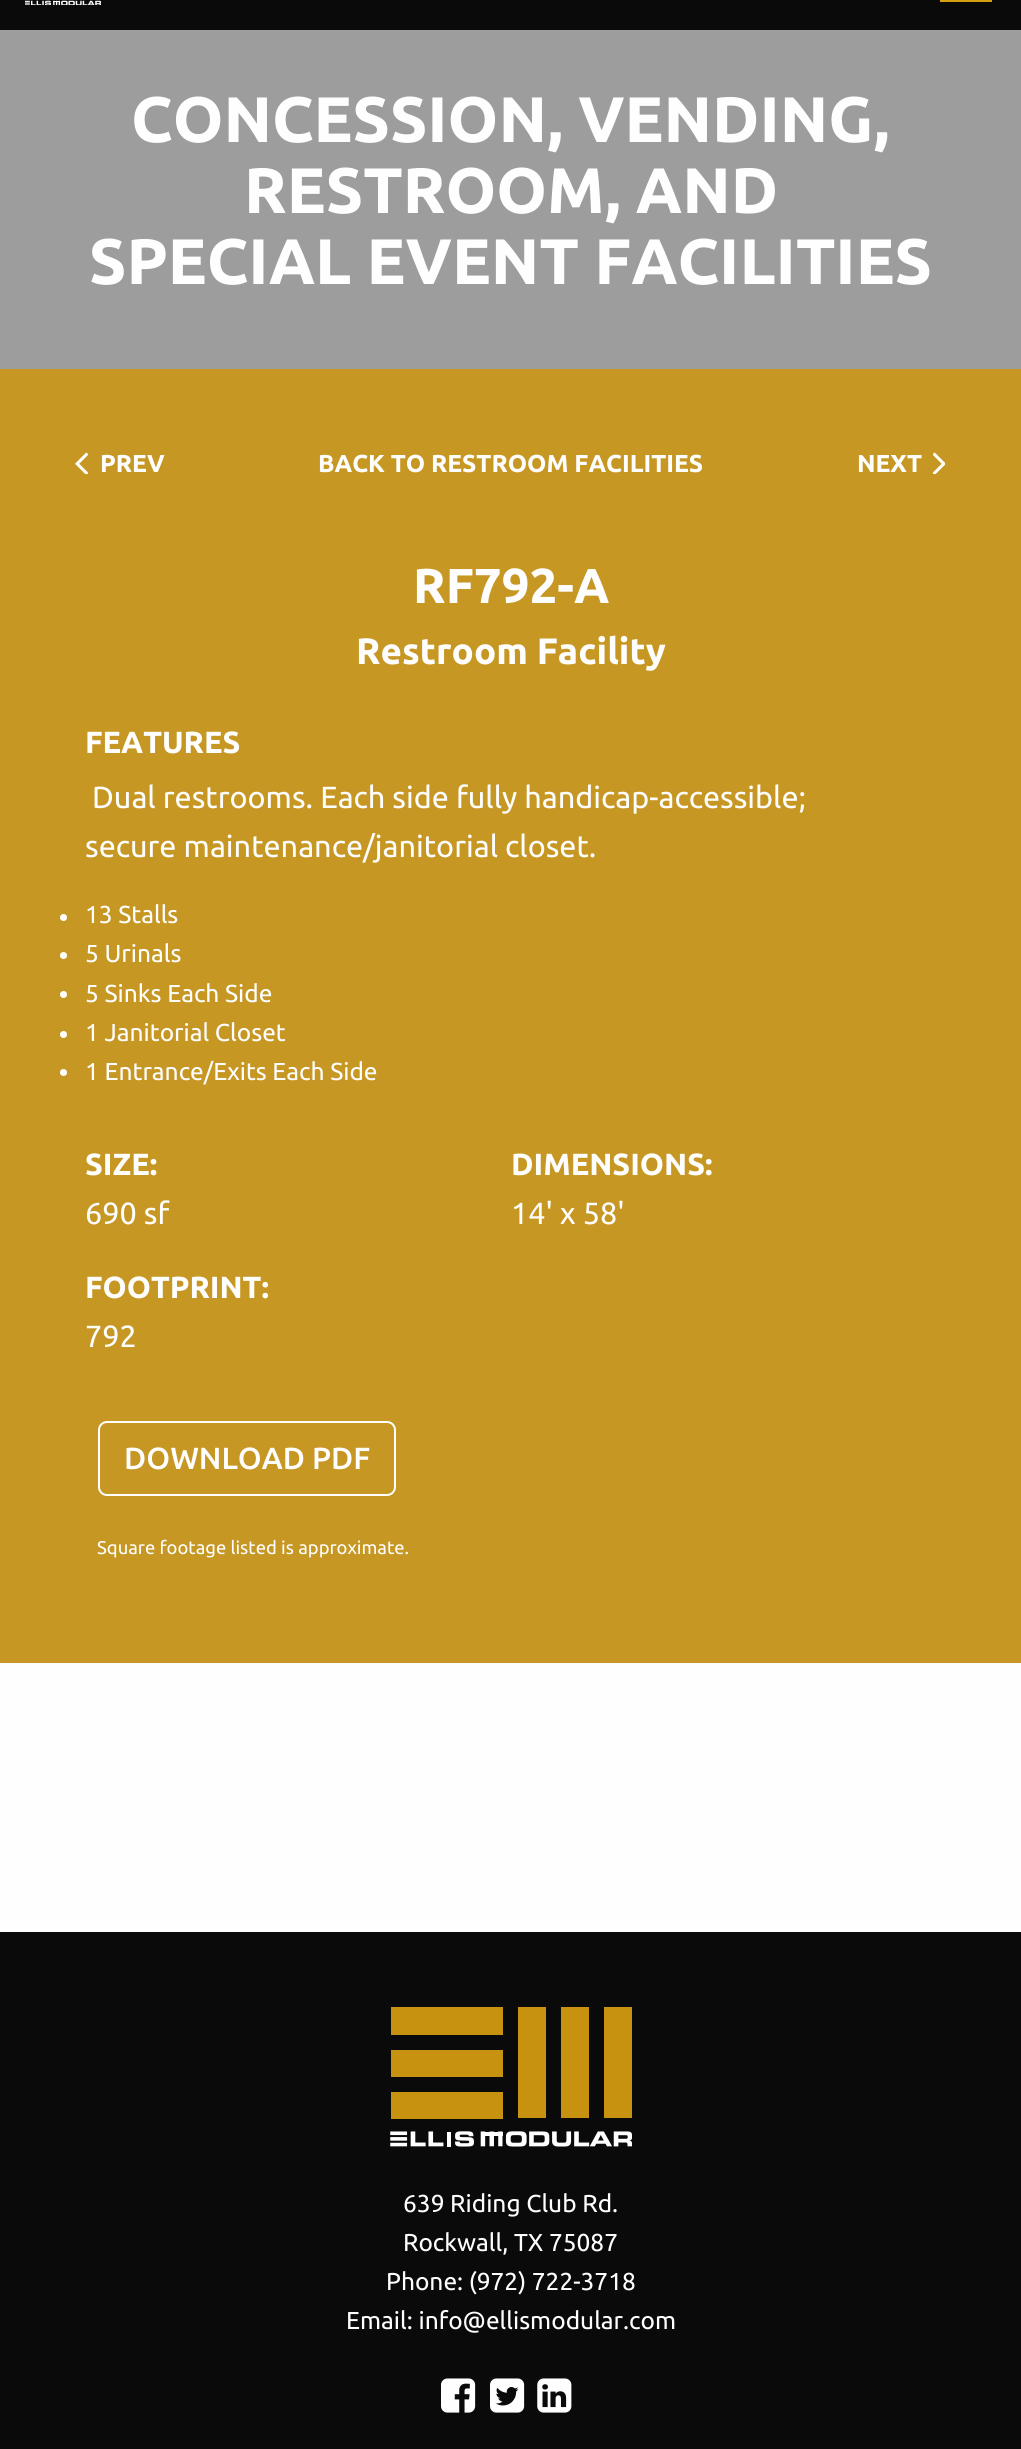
import math
import cairo



def rounded_rect(context, x, y, w, h, r):
    context.new_sub_path()
    for i, (u, v) in enumerate([(x + w - r, y + h - r), (x + r, y + h - r), (x + r, y + r), (x + w - r, y + r)]):
        context.arc(u, v, r, i * math.pi / 2, (i + 1) * math.pi / 2)
    context.close_path()


def draw_image(context, path, x, y, w, h):
    context.save()
    context.set_source_surface(cairo.ImageSurface.create_from_png(path), x, y)
    context.rectangle(x, y, w, h)
    context.fill()
    context.restore()


def draw(context):
    context.set_source_rgb(254 / 255, 254 / 255, 254 / 255)
    context.paint()
    context.set_source_rgb(10 / 255, 10 / 255, 10 / 255)
    context.rectangle(0, 0, 1021, 30)
    context.fill()
    draw_image(context, "images/1.png", 25, 0, 77, 5)
    context.set_source_rgb(213 / 255, 160 / 255, 15 / 255)
    context.rectangle(940, 0, 52, 2)
    context.fill()
    context.set_source_rgb(157 / 255, 157 / 255, 157 / 255)
    context.rectangle(0, 30, 1021, 339)
    context.fill()
    context.set_source_rgb(199 / 255, 151 / 255, 36 / 255)
    context.rectangle(0, 369, 1021, 1294)
    context.fill()
    draw_image(context, "images/2.png", 75, 452, 14, 22)
    draw_image(context, "images/3.png", 933, 452, 12, 22)
    context.set_source_rgb(254 / 255, 254 / 255, 254 / 255)
    context.arc(63.5, 917.5, 3.5, 0, 2 * math.pi)
    context.fill()
    context.arc(63.5, 955.5, 3.5, 0, 2 * math.pi)
    context.fill()
    context.arc(63.5, 994.5, 3.5, 0, 2 * math.pi)
    context.fill()
    context.arc(63.5, 1034.5, 3.5, 0, 2 * math.pi)
    context.fill()
    context.arc(63.5, 1072.5, 3.5, 0, 2 * math.pi)
    context.fill()
    rounded_rect(context, 99, 1422, 296, 73, 8)
    context.stroke()
    context.set_source_rgb(10 / 255, 10 / 255, 10 / 255)
    context.rectangle(0, 1932, 1021, 517)
    context.fill()
    draw_image(context, "images/4.png", 390, 2007, 242, 140)
    draw_image(context, "images/5.png", 441, 2378, 35, 35)
    draw_image(context, "images/6.png", 490, 2378, 35, 35)
    draw_image(context, "images/7.png", 537, 2378, 35, 35)
    context.select_font_face("Ubuntu", cairo.FontSlant.NORMAL, cairo.FontWeight.BOLD)
    context.set_font_size(64.25)
    context.set_source_rgb(254 / 255, 254 / 255, 254 / 255)
    context.move_to(131, 142)
    context.show_text("CONCESSION, VENDING,")
    context.move_to(244, 213)
    context.show_text("RESTROOM, AND")
    context.move_to(89, 284)
    context.show_text("SPECIAL EVENT FACILITIES")
    context.set_font_size(24.5)
    context.move_to(100, 472)
    context.show_text("PREV")
    context.move_to(318, 472)
    context.show_text("BACK TO RESTROOM FACILITIES")
    context.move_to(857, 472)
    context.show_text("NEXT")
    context.set_font_size(49)
    context.move_to(413, 603)
    context.show_text("RF792-A")
    context.set_font_size(36.75)
    context.move_to(356, 664)
    context.show_text("Restroom Facility")
    context.set_font_size(30.6)
    context.move_to(85, 753)
    context.show_text("FEATURES")
    context.select_font_face("Ubuntu")
    context.move_to(92, 808)
    context.show_text("Dual restrooms. Each side fully handicap-accessible;")
    context.move_to(85, 857)
    context.show_text("secure maintenance/janitorial closet.")
    context.set_font_size(24.5)
    context.move_to(85, 923)
    context.show_text("13 Stalls")
    context.move_to(85, 962)
    context.show_text("5 Urinals")
    context.move_to(85, 1002)
    context.show_text("5 Sinks Each Side")
    context.move_to(85, 1041)
    context.show_text("1 Janitorial Closet")
    context.move_to(85, 1080)
    context.show_text("1 Entrance/Exits Each Side")
    context.select_font_face("Ubuntu", cairo.FontSlant.NORMAL, cairo.FontWeight.BOLD)
    context.set_font_size(30.6)
    context.move_to(85, 1175)
    context.show_text("SIZE:")
    context.select_font_face("Ubuntu")
    context.move_to(85, 1224)
    context.show_text("690 sf")
    context.select_font_face("Ubuntu", cairo.FontSlant.NORMAL, cairo.FontWeight.BOLD)
    context.move_to(511, 1175)
    context.show_text("DIMENSIONS:")
    context.select_font_face("Ubuntu")
    context.move_to(511, 1224)
    context.show_text("14' x 58'")
    context.select_font_face("Ubuntu", cairo.FontSlant.NORMAL, cairo.FontWeight.BOLD)
    context.move_to(85, 1298)
    context.show_text("FOOTPRINT:")
    context.select_font_face("Ubuntu")
    context.move_to(85, 1347)
    context.show_text("792")
    context.select_font_face("Ubuntu Medium")
    context.move_to(124, 1469)
    context.show_text("DOWNLOAD PDF")
    context.select_font_face("Ubuntu")
    context.set_font_size(18.4)
    context.move_to(97, 1554)
    context.show_text("Square footage listed is approximate.")
    context.set_font_size(24.5)
    context.move_to(403, 2212)
    context.show_text("639 Riding Club Rd.")
    context.move_to(403, 2251)
    context.show_text("Rockwall, TX 75087")
    context.move_to(386, 2290)
    context.show_text("Phone: (972) 722-3718")
    context.move_to(346, 2329)
    context.show_text("Email: info@ellismodular.com")


surface = cairo.ImageSurface(cairo.Format.RGB24, 1021, 2449)
context = cairo.Context(surface)
options = cairo.FontOptions()
options.set_hint_metrics(cairo.HintMetrics.OFF)
options.set_hint_style(cairo.HintStyle.NONE)
context.set_font_options(options)
context.set_miter_limit(4)
draw(context)
surface.write_to_png("out.png")
